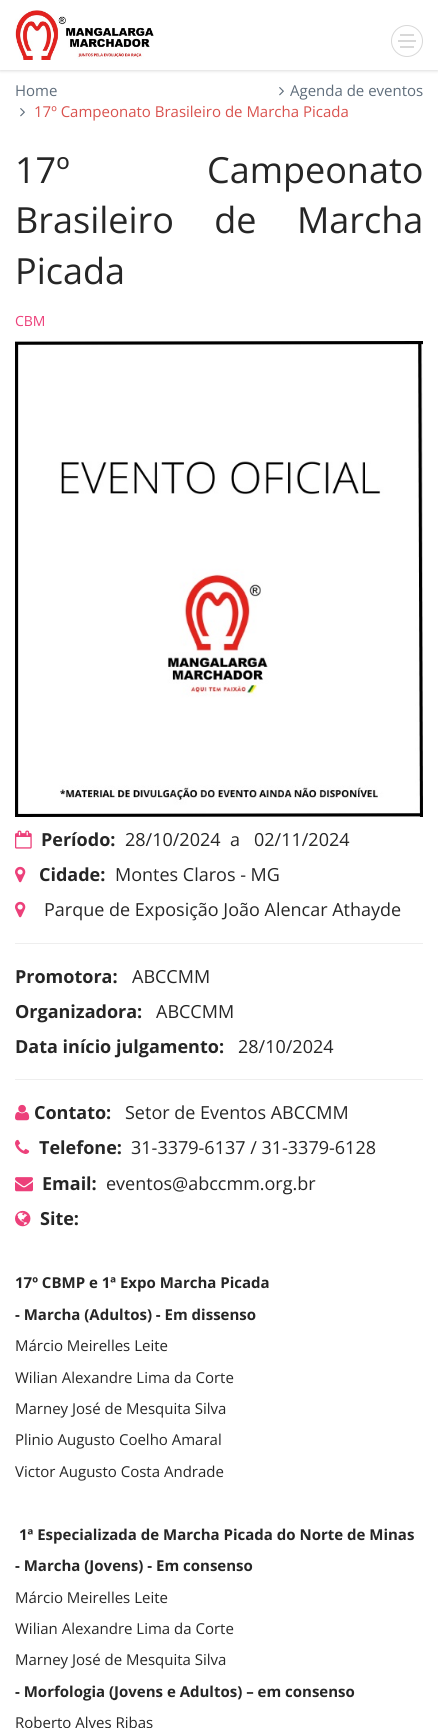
import math
import cairo



def draw_spaced(context, x, y, s, letter, word):
    context.move_to(x, y)
    for ch in s:
        context.show_text(ch)
        context.rel_move_to(letter + word * (ch == ' '), 0)


def rounded_rect(context, x, y, w, h, r):
    context.new_sub_path()
    for i, (u, v) in enumerate([(x + w - r, y + h - r), (x + r, y + h - r), (x + r, y + r), (x + w - r, y + r)]):
        context.arc(u, v, r, i * math.pi / 2, (i + 1) * math.pi / 2)
    context.close_path()


def draw_shadow(context, x, y, w, h, r, blur, alpha):
    context.push_group_with_content(cairo.Content.ALPHA)
    context.set_operator(cairo.Operator.SOURCE)
    for i in range(15, -16, -2):
        e = blur * i / 6
        if min(w, h) + 2 * e > 0:
            context.set_source_rgba(0, 0, 0, alpha * math.erfc((i - 1) / 8.5) / 2)
            rounded_rect(context, x - e, y - e, w + 2 * e, h + 2 * e, max(0, min(r + e + blur * .6, min(w, h) / 2 + e)))
            context.fill()
    context.mask(context.pop_group())


def draw_image(context, path, x, y, w, h):
    context.save()
    context.set_source_surface(cairo.ImageSurface.create_from_png(path), x, y)
    context.rectangle(x, y, w, h)
    context.fill()
    context.restore()


def draw(context):
    context.set_source_rgb(1, 1, 1)
    context.paint()
    context.save()
    context.rectangle(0, 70, 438, 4)
    context.clip()
    context.set_source_rgb(221 / 255, 221 / 255, 221 / 255)
    draw_shadow(context, 0, 1, 438, 70, 0, 1.5, 1)
    context.restore()
    draw_image(context, "images/1.png", 15, 10, 139, 50)
    draw_image(context, "images/2.png", 398, 34, 18, 14)
    context.arc(407, 41, 15.5, 0, 2 * math.pi)
    context.set_source_rgb(216 / 255, 216 / 255, 216 / 255)
    context.set_line_width(1)
    context.stroke()
    draw_image(context, "images/3.png", 279, 87, 5, 9)
    draw_image(context, "images/3.png", 20, 108, 5, 9)
    draw_image(context, "images/4.png", 15, 341, 408, 476)
    draw_image(context, "images/5.png", 15, 830, 17, 19)
    draw_image(context, "images/6.png", 15, 866, 11, 17)
    draw_image(context, "images/6.png", 15, 901, 11, 17)
    context.set_source_rgb(238 / 255, 238 / 255, 238 / 255)
    context.rectangle(15, 943, 408, 1)
    context.fill()
    context.rectangle(15, 1079, 408, 1)
    context.fill()
    draw_image(context, "images/7.png", 15, 1104, 15, 17)
    draw_image(context, "images/8.png", 15, 1139, 15, 15)
    draw_image(context, "images/9.png", 15, 1177, 18, 15)
    draw_image(context, "images/10.png", 15, 1210, 16, 17)
    context.select_font_face("Open Sans")
    context.set_font_size(15)
    context.set_source_rgb(95 / 255, 109 / 255, 123 / 255)
    context.move_to(15, 96)
    context.show_text("Home")
    context.move_to(290, 96)
    context.show_text("Agenda de eventos")
    context.set_source_rgb(217 / 255, 82 / 255, 78 / 255)
    context.move_to(34, 117)
    context.show_text("17º Campeonato Brasileiro de Marcha Picada")
    context.set_font_size(36)
    context.set_source_rgb(38 / 255, 38 / 255, 38 / 255)
    draw_spaced(context, 15, 183, "17º Campeonato", 0, 128)
    draw_spaced(context, 15, 233, "Brasileiro de Marcha", 0, 31)
    context.move_to(15, 284)
    context.show_text("Picada")
    context.set_font_size(14)
    context.set_source_rgb(236 / 255, 64 / 255, 122 / 255)
    context.move_to(15, 326)
    context.show_text("CBM")
    context.select_font_face("Open Sans", cairo.FontSlant.NORMAL, cairo.FontWeight.BOLD)
    context.set_font_size(18)
    context.set_source_rgb(38 / 255, 38 / 255, 38 / 255)
    context.move_to(41, 846)
    context.show_text("Período:")
    context.select_font_face("Open Sans")
    context.move_to(125, 846)
    context.show_text("28/10/2024")
    context.move_to(230, 846)
    context.show_text("a")
    context.move_to(254, 846)
    context.show_text("02/11/2024")
    context.select_font_face("Open Sans", cairo.FontSlant.NORMAL, cairo.FontWeight.BOLD)
    context.move_to(39, 881)
    context.show_text("Cidade:")
    context.select_font_face("Open Sans")
    context.move_to(115, 881)
    context.show_text("Montes Claros - MG")
    context.move_to(44, 916)
    context.show_text("Parque de Exposição João Alencar Athayde")
    context.select_font_face("Open Sans", cairo.FontSlant.NORMAL, cairo.FontWeight.BOLD)
    context.move_to(15, 983)
    context.show_text("Promotora:")
    context.select_font_face("Open Sans")
    context.move_to(132, 983)
    context.show_text("ABCCMM")
    context.select_font_face("Open Sans", cairo.FontSlant.NORMAL, cairo.FontWeight.BOLD)
    context.move_to(15, 1018)
    context.show_text("Organizadora:")
    context.select_font_face("Open Sans")
    context.move_to(156, 1018)
    context.show_text("ABCCMM")
    context.select_font_face("Open Sans", cairo.FontSlant.NORMAL, cairo.FontWeight.BOLD)
    context.move_to(15, 1053)
    context.show_text("Data início julgamento:")
    context.select_font_face("Open Sans")
    context.move_to(238, 1053)
    context.show_text("28/10/2024")
    context.select_font_face("Open Sans", cairo.FontSlant.NORMAL, cairo.FontWeight.BOLD)
    context.move_to(34, 1119)
    context.show_text("Contato:")
    context.select_font_face("Open Sans")
    context.move_to(125, 1119)
    context.show_text("Setor de Eventos ABCCMM")
    context.select_font_face("Open Sans", cairo.FontSlant.NORMAL, cairo.FontWeight.BOLD)
    context.move_to(39, 1154)
    context.show_text("Telefone:")
    context.select_font_face("Open Sans")
    context.move_to(131, 1154)
    context.show_text("31-3379-6137 / 31-3379-6128")
    context.select_font_face("Open Sans", cairo.FontSlant.NORMAL, cairo.FontWeight.BOLD)
    context.move_to(42, 1190)
    context.show_text("Email:")
    context.select_font_face("Open Sans")
    context.move_to(106, 1190)
    context.show_text("eventos@abccmm.org.br")
    context.select_font_face("Open Sans", cairo.FontSlant.NORMAL, cairo.FontWeight.BOLD)
    context.move_to(40, 1225)
    context.show_text("Site:")
    context.set_font_size(15)
    context.move_to(15, 1288)
    context.show_text("17º CBMP e 1ª Expo Marcha Picada")
    context.move_to(15, 1320)
    context.show_text("- Marcha (Adultos) - Em dissenso")
    context.select_font_face("Open Sans")
    context.move_to(15, 1351)
    context.show_text("Márcio Meirelles Leite")
    context.move_to(15, 1383)
    context.show_text("Wilian Alexandre Lima da Corte")
    context.move_to(15, 1414)
    context.show_text("Marney José de Mesquita Silva")
    context.move_to(15, 1445)
    context.show_text("Plinio Augusto Coelho Amaral")
    context.move_to(15, 1477)
    context.show_text("Victor Augusto Costa Andrade")
    context.select_font_face("Open Sans", cairo.FontSlant.NORMAL, cairo.FontWeight.BOLD)
    context.move_to(19, 1540)
    context.show_text("1ª Especializada de Marcha Picada do Norte de Minas")
    context.move_to(15, 1571)
    context.show_text("- Marcha (Jovens) - Em consenso")
    context.select_font_face("Open Sans")
    context.move_to(15, 1603)
    context.show_text("Márcio Meirelles Leite")
    context.move_to(15, 1634)
    context.show_text("Wilian Alexandre Lima da Corte")
    context.move_to(15, 1665)
    context.show_text("Marney José de Mesquita Silva")
    context.select_font_face("Open Sans", cairo.FontSlant.NORMAL, cairo.FontWeight.BOLD)
    context.move_to(15, 1697)
    context.show_text("- Morfologia (Jovens e Adultos) – em consenso")
    context.select_font_face("Open Sans")
    context.move_to(15, 1728)
    context.show_text("Roberto Alves Ribas")


surface = cairo.ImageSurface(cairo.Format.RGB24, 438, 1728)
context = cairo.Context(surface)
options = cairo.FontOptions()
options.set_hint_metrics(cairo.HintMetrics.OFF)
options.set_hint_style(cairo.HintStyle.NONE)
context.set_font_options(options)
context.set_miter_limit(4)
draw(context)
surface.write_to_png("out.png")
